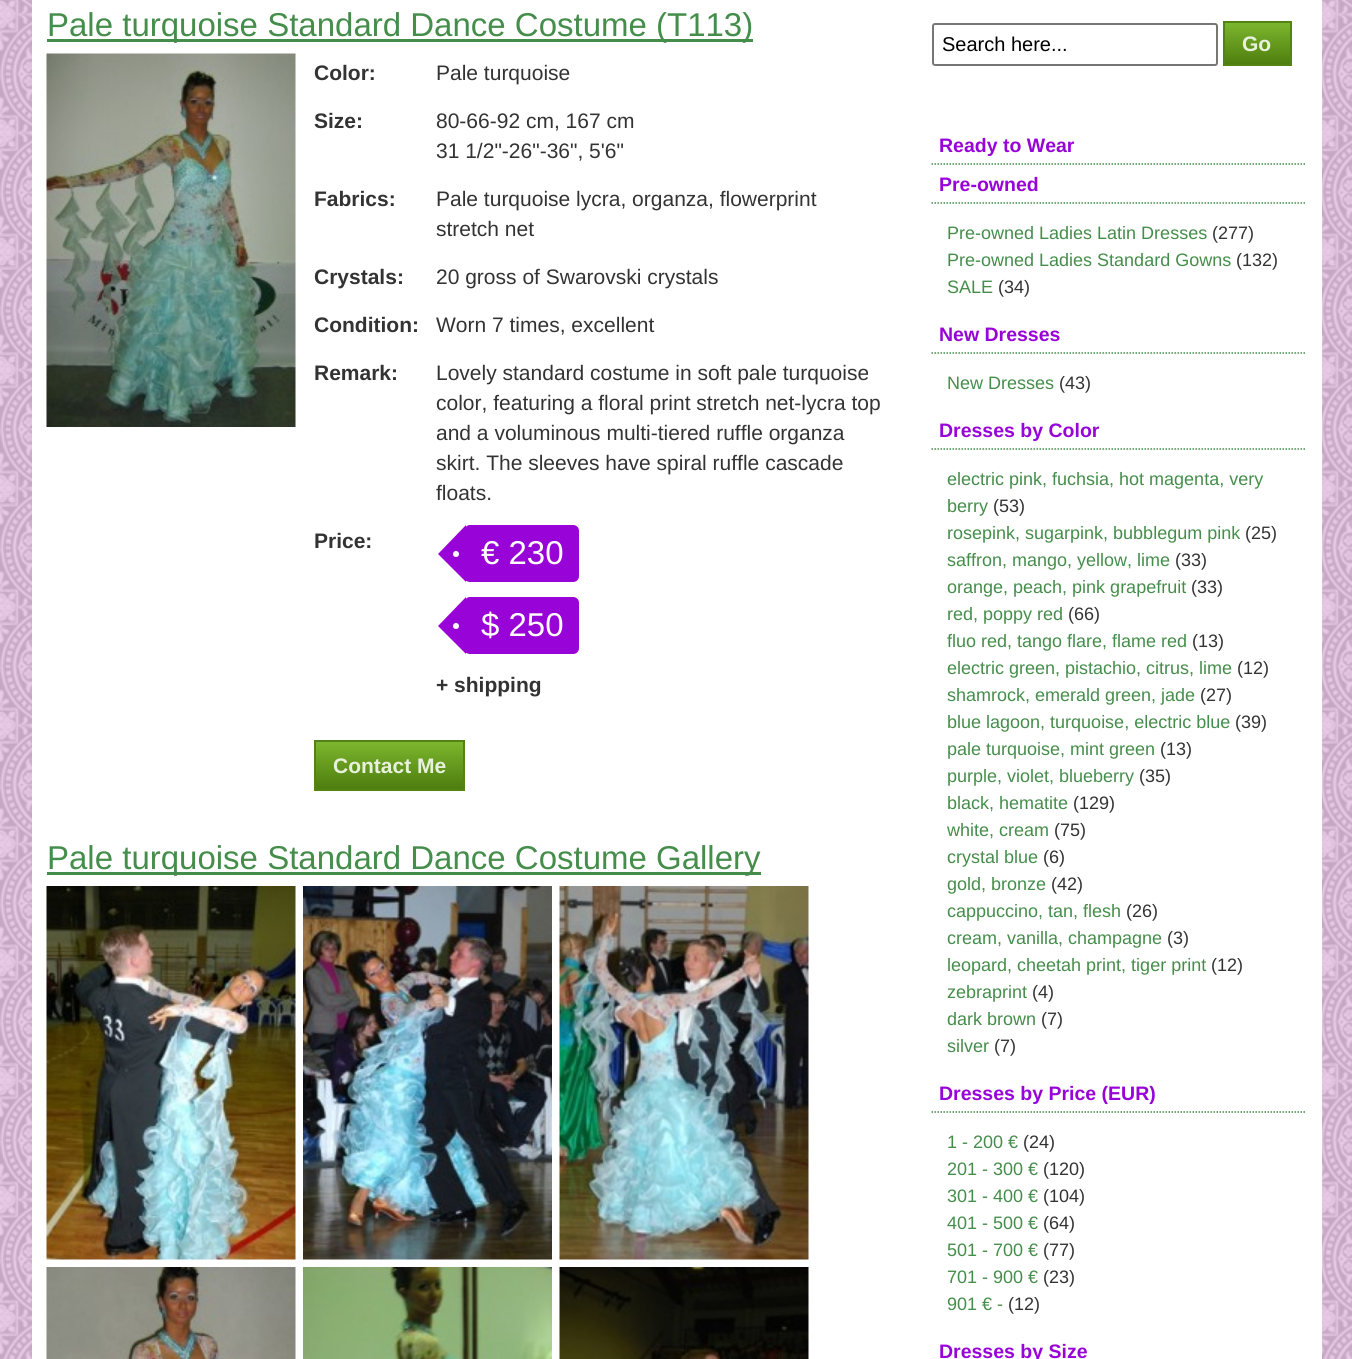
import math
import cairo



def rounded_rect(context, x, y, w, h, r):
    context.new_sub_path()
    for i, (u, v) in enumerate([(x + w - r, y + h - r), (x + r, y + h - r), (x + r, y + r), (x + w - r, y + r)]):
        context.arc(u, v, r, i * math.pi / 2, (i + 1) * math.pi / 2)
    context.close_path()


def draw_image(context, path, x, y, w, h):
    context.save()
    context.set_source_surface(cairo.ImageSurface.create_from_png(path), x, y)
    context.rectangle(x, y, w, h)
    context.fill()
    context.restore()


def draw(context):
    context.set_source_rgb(1, 1, 1)
    context.paint()
    draw_image(context, "images/1.png", 0, 0, 1352, 1359)
    context.set_source_rgb(1, 1, 1)
    context.rectangle(32, 0, 1290, 1359)
    context.fill()
    context.set_source_rgb(69 / 255, 141 / 255, 74 / 255)
    context.rectangle(47, 39, 706, 3)
    context.fill()
    draw_image(context, "images/2.png", 46, 53, 250, 374)
    context.set_source_rgb(152 / 255, 3 / 255, 215 / 255)
    context.new_path()
    context.move_to(470, 525)
    context.line_to(573, 525)
    context.curve_to(576.5, 525, 579, 527.5, 579, 531)
    context.line_to(579, 576)
    context.curve_to(579, 579.5, 576.5, 582, 573, 582)
    context.line_to(470, 582)
    context.curve_to(467, 582, 465, 580, 465, 577)
    context.line_to(465, 530)
    context.curve_to(465, 527, 467, 525, 470, 525)
    context.close_path()
    context.fill()
    context.rectangle(466, 580, 1, 1)
    context.fill()
    context.new_path()
    context.move_to(466, 525)
    context.line_to(466, 582)
    context.line_to(438, 554)
    context.close_path()
    context.fill()
    context.set_source_rgb(1, 1, 1)
    context.arc(456, 554, 3, 0, 2 * math.pi)
    context.fill()
    context.set_source_rgb(152 / 255, 3 / 255, 215 / 255)
    context.new_path()
    context.move_to(470, 597)
    context.line_to(573, 597)
    context.curve_to(576.5, 597, 579, 599.5, 579, 603)
    context.line_to(579, 648)
    context.curve_to(579, 651.5, 576.5, 654, 573, 654)
    context.line_to(470, 654)
    context.curve_to(467, 654, 465, 652, 465, 649)
    context.line_to(465, 602)
    context.curve_to(465, 599, 467, 597, 470, 597)
    context.close_path()
    context.fill()
    context.rectangle(466, 652, 1, 1)
    context.fill()
    context.new_path()
    context.move_to(466, 597)
    context.line_to(466, 654)
    context.line_to(438, 626)
    context.close_path()
    context.fill()
    context.set_source_rgb(1, 1, 1)
    context.arc(456, 626, 3, 0, 2 * math.pi)
    context.fill()
    gradient = cairo.LinearGradient(389, 741, 389, 789)
    gradient.add_color_stop_rgba(0, 125 / 255, 183 / 255, 47 / 255, 1)
    gradient.add_color_stop_rgba(1, 78 / 255, 125 / 255, 14 / 255, 1)
    context.set_source(gradient)
    context.rectangle(316, 742, 147, 47)
    context.fill()
    context.rectangle(315, 741, 149, 49)
    context.set_source_rgb(83 / 255, 131 / 255, 18 / 255)
    context.stroke()
    context.set_source_rgb(69 / 255, 141 / 255, 74 / 255)
    context.rectangle(47, 872, 714, 3)
    context.fill()
    draw_image(context, "images/3.png", 46, 886, 250, 374)
    draw_image(context, "images/4.png", 303, 886, 249, 374)
    draw_image(context, "images/5.png", 559, 886, 250, 374)
    draw_image(context, "images/6.png", 46, 1267, 250, 92)
    draw_image(context, "images/7.png", 303, 1267, 249, 92)
    draw_image(context, "images/8.png", 559, 1267, 250, 92)
    rounded_rect(context, 933, 24, 284, 41, 2)
    context.set_source_rgb(118 / 255, 118 / 255, 118 / 255)
    context.stroke()
    gradient = cairo.LinearGradient(1257, 22, 1257, 65)
    gradient.add_color_stop_rgba(0, 125 / 255, 183 / 255, 47 / 255, 1)
    gradient.add_color_stop_rgba(1, 78 / 255, 125 / 255, 14 / 255, 1)
    context.set_source(gradient)
    context.rectangle(1225, 23, 65, 41)
    context.fill()
    context.rectangle(1224, 22, 67, 43)
    context.set_source_rgb(83 / 255, 131 / 255, 18 / 255)
    context.stroke()
    context.new_path()
    context.move_to(931.5, 164)
    context.line_to(1306.5, 164)
    context.set_source_rgb(69 / 255, 141 / 255, 74 / 255)
    context.set_line_width(1.5)
    context.set_dash([1.5, 1.5])
    context.stroke()
    context.new_path()
    context.move_to(931.5, 203)
    context.line_to(1306.5, 203)
    context.stroke()
    context.new_path()
    context.move_to(931.5, 353)
    context.line_to(1306.5, 353)
    context.stroke()
    context.new_path()
    context.move_to(931.5, 449)
    context.line_to(1306.5, 449)
    context.stroke()
    context.new_path()
    context.move_to(931.5, 1112)
    context.line_to(1306.5, 1112)
    context.stroke()
    context.select_font_face("Liberation Sans")
    context.set_font_size(33)
    context.move_to(47, 36)
    context.show_text("Pale turquoise Standard Dance Costume (T113)")
    context.select_font_face("Liberation Sans", cairo.FontSlant.NORMAL, cairo.FontWeight.BOLD)
    context.set_font_size(21)
    context.set_source_rgb(51 / 255, 51 / 255, 51 / 255)
    context.move_to(314, 80)
    context.show_text("Color:")
    context.select_font_face("Liberation Sans")
    context.move_to(436, 80)
    context.show_text("Pale turquoise")
    context.select_font_face("Liberation Sans", cairo.FontSlant.NORMAL, cairo.FontWeight.BOLD)
    context.move_to(314, 128)
    context.show_text("Size:")
    context.select_font_face("Liberation Sans")
    context.move_to(436, 128)
    context.show_text("80-66-92 cm, 167 cm")
    context.move_to(436, 158)
    context.show_text("31 1/2\"-26\"-36\", 5'6\"")
    context.select_font_face("Liberation Sans", cairo.FontSlant.NORMAL, cairo.FontWeight.BOLD)
    context.move_to(314, 206)
    context.show_text("Fabrics:")
    context.select_font_face("Liberation Sans")
    context.move_to(436, 206)
    context.show_text("Pale turquoise lycra, organza, flowerprint")
    context.move_to(436, 236)
    context.show_text("stretch net")
    context.select_font_face("Liberation Sans", cairo.FontSlant.NORMAL, cairo.FontWeight.BOLD)
    context.move_to(314, 284)
    context.show_text("Crystals:")
    context.select_font_face("Liberation Sans")
    context.move_to(436, 284)
    context.show_text("20 gross of Swarovski crystals")
    context.select_font_face("Liberation Sans", cairo.FontSlant.NORMAL, cairo.FontWeight.BOLD)
    context.move_to(314, 332)
    context.show_text("Condition:")
    context.select_font_face("Liberation Sans")
    context.move_to(436, 332)
    context.show_text("Worn 7 times, excellent")
    context.select_font_face("Liberation Sans", cairo.FontSlant.NORMAL, cairo.FontWeight.BOLD)
    context.move_to(314, 380)
    context.show_text("Remark:")
    context.select_font_face("Liberation Sans")
    context.move_to(436, 380)
    context.show_text("Lovely standard costume in soft pale turquoise")
    context.move_to(436, 410)
    context.show_text("color, featuring a floral print stretch net-lycra top")
    context.move_to(436, 440)
    context.show_text("and a voluminous multi-tiered ruffle organza")
    context.move_to(436, 470)
    context.show_text("skirt. The sleeves have spiral ruffle cascade")
    context.move_to(436, 500)
    context.show_text("floats.")
    context.select_font_face("Liberation Sans", cairo.FontSlant.NORMAL, cairo.FontWeight.BOLD)
    context.move_to(314, 548)
    context.show_text("Price:")
    context.select_font_face("Liberation Sans")
    context.set_font_size(33)
    context.set_source_rgb(1, 1, 1)
    context.move_to(481, 564)
    context.show_text("€ 230")
    context.move_to(481, 636)
    context.show_text("$ 250")
    context.select_font_face("Liberation Sans", cairo.FontSlant.NORMAL, cairo.FontWeight.BOLD)
    context.set_font_size(21)
    context.set_source_rgb(51 / 255, 51 / 255, 51 / 255)
    context.move_to(436, 692)
    context.show_text("+ shipping")
    context.set_source_rgb(232 / 255, 240 / 255, 222 / 255)
    context.move_to(333, 773)
    context.show_text("Contact Me")
    context.select_font_face("Liberation Sans")
    context.set_font_size(33)
    context.set_source_rgb(69 / 255, 141 / 255, 74 / 255)
    context.move_to(47, 869)
    context.show_text("Pale turquoise Standard Dance Costume Gallery")
    context.set_font_size(20)
    context.set_source_rgb(0, 0, 0)
    context.move_to(942, 51)
    context.show_text("Search here...")
    context.select_font_face("Liberation Sans", cairo.FontSlant.NORMAL, cairo.FontWeight.BOLD)
    context.set_font_size(21)
    context.set_source_rgb(232 / 255, 240 / 255, 222 / 255)
    context.move_to(1242, 51)
    context.show_text("Go")
    context.set_font_size(19.5)
    context.set_source_rgb(152 / 255, 3 / 255, 215 / 255)
    context.move_to(939, 152)
    context.show_text("Ready to Wear")
    context.move_to(939, 191)
    context.show_text("Pre-owned")
    context.select_font_face("Liberation Sans")
    context.set_font_size(18)
    context.set_source_rgb(69 / 255, 141 / 255, 74 / 255)
    context.move_to(947, 239)
    context.show_text("Pre-owned Ladies Latin Dresses")
    context.set_source_rgb(51 / 255, 51 / 255, 51 / 255)
    context.move_to(1212, 239)
    context.show_text("(277)")
    context.set_source_rgb(69 / 255, 141 / 255, 74 / 255)
    context.move_to(947, 266)
    context.show_text("Pre-owned Ladies Standard Gowns")
    context.set_source_rgb(51 / 255, 51 / 255, 51 / 255)
    context.move_to(1236, 266)
    context.show_text("(132)")
    context.set_source_rgb(69 / 255, 141 / 255, 74 / 255)
    context.move_to(947, 293)
    context.show_text("SALE")
    context.set_source_rgb(51 / 255, 51 / 255, 51 / 255)
    context.move_to(998, 293)
    context.show_text("(34)")
    context.select_font_face("Liberation Sans", cairo.FontSlant.NORMAL, cairo.FontWeight.BOLD)
    context.set_font_size(19.5)
    context.set_source_rgb(152 / 255, 3 / 255, 215 / 255)
    context.move_to(939, 341)
    context.show_text("New Dresses")
    context.select_font_face("Liberation Sans")
    context.set_font_size(18)
    context.set_source_rgb(69 / 255, 141 / 255, 74 / 255)
    context.move_to(947, 389)
    context.show_text("New Dresses")
    context.set_source_rgb(51 / 255, 51 / 255, 51 / 255)
    context.move_to(1059, 389)
    context.show_text("(43)")
    context.select_font_face("Liberation Sans", cairo.FontSlant.NORMAL, cairo.FontWeight.BOLD)
    context.set_font_size(19.5)
    context.set_source_rgb(152 / 255, 3 / 255, 215 / 255)
    context.move_to(939, 437)
    context.show_text("Dresses by Color")
    context.select_font_face("Liberation Sans")
    context.set_font_size(18)
    context.set_source_rgb(69 / 255, 141 / 255, 74 / 255)
    context.move_to(947, 485)
    context.show_text("electric pink, fuchsia, hot magenta, very")
    context.move_to(947, 512)
    context.show_text("berry")
    context.set_source_rgb(51 / 255, 51 / 255, 51 / 255)
    context.move_to(993, 512)
    context.show_text("(53)")
    context.set_source_rgb(69 / 255, 141 / 255, 74 / 255)
    context.move_to(947, 539)
    context.show_text("rosepink, sugarpink, bubblegum pink")
    context.set_source_rgb(51 / 255, 51 / 255, 51 / 255)
    context.move_to(1245, 539)
    context.show_text("(25)")
    context.set_source_rgb(69 / 255, 141 / 255, 74 / 255)
    context.move_to(947, 566)
    context.show_text("saffron, mango, yellow, lime")
    context.set_source_rgb(51 / 255, 51 / 255, 51 / 255)
    context.move_to(1175, 566)
    context.show_text("(33)")
    context.set_source_rgb(69 / 255, 141 / 255, 74 / 255)
    context.move_to(947, 593)
    context.show_text("orange, peach, pink grapefruit")
    context.set_source_rgb(51 / 255, 51 / 255, 51 / 255)
    context.move_to(1191, 593)
    context.show_text("(33)")
    context.set_source_rgb(69 / 255, 141 / 255, 74 / 255)
    context.move_to(947, 620)
    context.show_text("red, poppy red")
    context.set_source_rgb(51 / 255, 51 / 255, 51 / 255)
    context.move_to(1068, 620)
    context.show_text("(66)")
    context.set_source_rgb(69 / 255, 141 / 255, 74 / 255)
    context.move_to(947, 647)
    context.show_text("fluo red, tango flare, flame red")
    context.set_source_rgb(51 / 255, 51 / 255, 51 / 255)
    context.move_to(1192, 647)
    context.show_text("(13)")
    context.set_source_rgb(69 / 255, 141 / 255, 74 / 255)
    context.move_to(947, 674)
    context.show_text("electric green, pistachio, citrus, lime")
    context.set_source_rgb(51 / 255, 51 / 255, 51 / 255)
    context.move_to(1237, 674)
    context.show_text("(12)")
    context.set_source_rgb(69 / 255, 141 / 255, 74 / 255)
    context.move_to(947, 701)
    context.show_text("shamrock, emerald green, jade")
    context.set_source_rgb(51 / 255, 51 / 255, 51 / 255)
    context.move_to(1200, 701)
    context.show_text("(27)")
    context.set_source_rgb(69 / 255, 141 / 255, 74 / 255)
    context.move_to(947, 728)
    context.show_text("blue lagoon, turquoise, electric blue")
    context.set_source_rgb(51 / 255, 51 / 255, 51 / 255)
    context.move_to(1235, 728)
    context.show_text("(39)")
    context.set_source_rgb(69 / 255, 141 / 255, 74 / 255)
    context.move_to(947, 755)
    context.show_text("pale turquoise, mint green")
    context.set_source_rgb(51 / 255, 51 / 255, 51 / 255)
    context.move_to(1160, 755)
    context.show_text("(13)")
    context.set_source_rgb(69 / 255, 141 / 255, 74 / 255)
    context.move_to(947, 782)
    context.show_text("purple, violet, blueberry")
    context.set_source_rgb(51 / 255, 51 / 255, 51 / 255)
    context.move_to(1139, 782)
    context.show_text("(35)")
    context.set_source_rgb(69 / 255, 141 / 255, 74 / 255)
    context.move_to(947, 809)
    context.show_text("black, hematite")
    context.set_source_rgb(51 / 255, 51 / 255, 51 / 255)
    context.move_to(1073, 809)
    context.show_text("(129)")
    context.set_source_rgb(69 / 255, 141 / 255, 74 / 255)
    context.move_to(947, 836)
    context.show_text("white, cream")
    context.set_source_rgb(51 / 255, 51 / 255, 51 / 255)
    context.move_to(1054, 836)
    context.show_text("(75)")
    context.set_source_rgb(69 / 255, 141 / 255, 74 / 255)
    context.move_to(947, 863)
    context.show_text("crystal blue")
    context.set_source_rgb(51 / 255, 51 / 255, 51 / 255)
    context.move_to(1043, 863)
    context.show_text("(6)")
    context.set_source_rgb(69 / 255, 141 / 255, 74 / 255)
    context.move_to(947, 890)
    context.show_text("gold, bronze")
    context.set_source_rgb(51 / 255, 51 / 255, 51 / 255)
    context.move_to(1051, 890)
    context.show_text("(42)")
    context.set_source_rgb(69 / 255, 141 / 255, 74 / 255)
    context.move_to(947, 917)
    context.show_text("cappuccino, tan, flesh")
    context.set_source_rgb(51 / 255, 51 / 255, 51 / 255)
    context.move_to(1126, 917)
    context.show_text("(26)")
    context.set_source_rgb(69 / 255, 141 / 255, 74 / 255)
    context.move_to(947, 944)
    context.show_text("cream, vanilla, champagne")
    context.set_source_rgb(51 / 255, 51 / 255, 51 / 255)
    context.move_to(1167, 944)
    context.show_text("(3)")
    context.set_source_rgb(69 / 255, 141 / 255, 74 / 255)
    context.move_to(947, 971)
    context.show_text("leopard, cheetah print, tiger print")
    context.set_source_rgb(51 / 255, 51 / 255, 51 / 255)
    context.move_to(1211, 971)
    context.show_text("(12)")
    context.set_source_rgb(69 / 255, 141 / 255, 74 / 255)
    context.move_to(947, 998)
    context.show_text("zebraprint")
    context.set_source_rgb(51 / 255, 51 / 255, 51 / 255)
    context.move_to(1032, 998)
    context.show_text("(4)")
    context.set_source_rgb(69 / 255, 141 / 255, 74 / 255)
    context.move_to(947, 1025)
    context.show_text("dark brown")
    context.set_source_rgb(51 / 255, 51 / 255, 51 / 255)
    context.move_to(1041, 1025)
    context.show_text("(7)")
    context.set_source_rgb(69 / 255, 141 / 255, 74 / 255)
    context.move_to(947, 1052)
    context.show_text("silver")
    context.set_source_rgb(51 / 255, 51 / 255, 51 / 255)
    context.move_to(994, 1052)
    context.show_text("(7)")
    context.select_font_face("Liberation Sans", cairo.FontSlant.NORMAL, cairo.FontWeight.BOLD)
    context.set_font_size(19.5)
    context.set_source_rgb(152 / 255, 3 / 255, 215 / 255)
    context.move_to(939, 1100)
    context.show_text("Dresses by Price (EUR)")
    context.select_font_face("Liberation Sans")
    context.set_font_size(18)
    context.set_source_rgb(69 / 255, 141 / 255, 74 / 255)
    context.move_to(947, 1148)
    context.show_text("1 - 200 €")
    context.set_source_rgb(51 / 255, 51 / 255, 51 / 255)
    context.move_to(1023, 1148)
    context.show_text("(24)")
    context.set_source_rgb(69 / 255, 141 / 255, 74 / 255)
    context.move_to(947, 1175)
    context.show_text("201 - 300 €")
    context.set_source_rgb(51 / 255, 51 / 255, 51 / 255)
    context.move_to(1043, 1175)
    context.show_text("(120)")
    context.set_source_rgb(69 / 255, 141 / 255, 74 / 255)
    context.move_to(947, 1202)
    context.show_text("301 - 400 €")
    context.set_source_rgb(51 / 255, 51 / 255, 51 / 255)
    context.move_to(1043, 1202)
    context.show_text("(104)")
    context.set_source_rgb(69 / 255, 141 / 255, 74 / 255)
    context.move_to(947, 1229)
    context.show_text("401 - 500 €")
    context.set_source_rgb(51 / 255, 51 / 255, 51 / 255)
    context.move_to(1043, 1229)
    context.show_text("(64)")
    context.set_source_rgb(69 / 255, 141 / 255, 74 / 255)
    context.move_to(947, 1256)
    context.show_text("501 - 700 €")
    context.set_source_rgb(51 / 255, 51 / 255, 51 / 255)
    context.move_to(1043, 1256)
    context.show_text("(77)")
    context.set_source_rgb(69 / 255, 141 / 255, 74 / 255)
    context.move_to(947, 1283)
    context.show_text("701 - 900 €")
    context.set_source_rgb(51 / 255, 51 / 255, 51 / 255)
    context.move_to(1043, 1283)
    context.show_text("(23)")
    context.set_source_rgb(69 / 255, 141 / 255, 74 / 255)
    context.move_to(947, 1310)
    context.show_text("901 € -")
    context.set_source_rgb(51 / 255, 51 / 255, 51 / 255)
    context.move_to(1008, 1310)
    context.show_text("(12)")
    context.select_font_face("Liberation Sans", cairo.FontSlant.NORMAL, cairo.FontWeight.BOLD)
    context.set_font_size(19.5)
    context.set_source_rgb(152 / 255, 3 / 255, 215 / 255)
    context.move_to(939, 1358)
    context.show_text("Dresses by Size")


surface = cairo.ImageSurface(cairo.Format.RGB24, 1352, 1359)
context = cairo.Context(surface)
options = cairo.FontOptions()
options.set_hint_metrics(cairo.HintMetrics.OFF)
options.set_hint_style(cairo.HintStyle.NONE)
context.set_font_options(options)
context.set_miter_limit(4)
draw(context)
surface.write_to_png("out.png")
